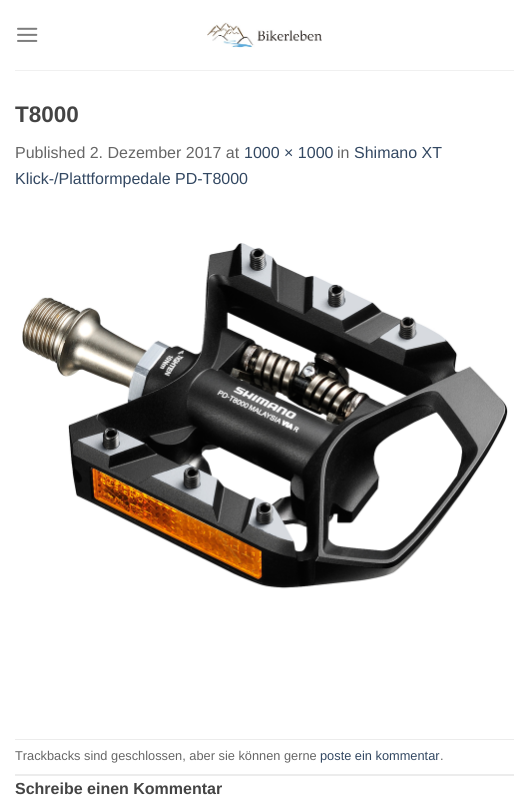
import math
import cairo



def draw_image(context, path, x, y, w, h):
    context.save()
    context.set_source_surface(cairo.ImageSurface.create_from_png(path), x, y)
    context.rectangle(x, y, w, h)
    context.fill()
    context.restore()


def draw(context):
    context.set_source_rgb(1, 1, 1)
    context.paint()
    draw_image(context, "images/1.png", 17, 27, 21, 15)
    draw_image(context, "images/2.png", 207, 22, 115, 26)
    context.set_source_rgb(240 / 255, 240 / 255, 240 / 255)
    context.rectangle(15, 70, 499, 1)
    context.fill()
    draw_image(context, "images/3.png", 22, 243, 486, 346)
    context.set_source_rgb(236 / 255, 236 / 255, 236 / 255)
    context.rectangle(15, 739, 499, 1)
    context.fill()
    context.rectangle(15, 774, 499, 2)
    context.fill()
    context.select_font_face("Liberation Sans", cairo.FontSlant.NORMAL, cairo.FontWeight.BOLD)
    context.set_font_size(22.5)
    context.set_source_rgb(68 / 255, 68 / 255, 68 / 255)
    context.move_to(15, 122)
    context.show_text("T8000")
    context.select_font_face("Liberation Sans")
    context.set_font_size(16)
    context.set_source_rgb(102 / 255, 102 / 255, 102 / 255)
    context.move_to(15, 158)
    context.show_text("Published 2. Dezember 2017 at")
    context.set_source_rgb(51 / 255, 72 / 255, 98 / 255)
    context.move_to(244, 158)
    context.show_text("1000 × 1000")
    context.set_source_rgb(102 / 255, 102 / 255, 102 / 255)
    context.move_to(337, 158)
    context.show_text("in")
    context.set_source_rgb(51 / 255, 72 / 255, 98 / 255)
    context.move_to(354, 158)
    context.show_text("Shimano XT")
    context.move_to(15, 184)
    context.show_text("Klick-/Plattformpedale PD-T8000")
    context.set_font_size(12.8)
    context.set_source_rgb(102 / 255, 102 / 255, 102 / 255)
    context.move_to(15, 760)
    context.show_text("Trackbacks sind geschlossen, aber sie können gerne")
    context.set_source_rgb(51 / 255, 72 / 255, 98 / 255)
    context.move_to(320, 760)
    context.show_text("poste ein kommentar")
    context.set_source_rgb(102 / 255, 102 / 255, 102 / 255)
    context.move_to(440, 760)
    context.show_text(".")
    context.select_font_face("Liberation Sans", cairo.FontSlant.NORMAL, cairo.FontWeight.BOLD)
    context.set_font_size(16)
    context.set_source_rgb(68 / 255, 68 / 255, 68 / 255)
    context.move_to(15, 794)
    context.show_text("Schreibe einen Kommentar")


surface = cairo.ImageSurface(cairo.Format.RGB24, 529, 798)
context = cairo.Context(surface)
options = cairo.FontOptions()
options.set_hint_metrics(cairo.HintMetrics.OFF)
options.set_hint_style(cairo.HintStyle.NONE)
context.set_font_options(options)
context.set_miter_limit(4)
draw(context)
surface.write_to_png("out.png")
